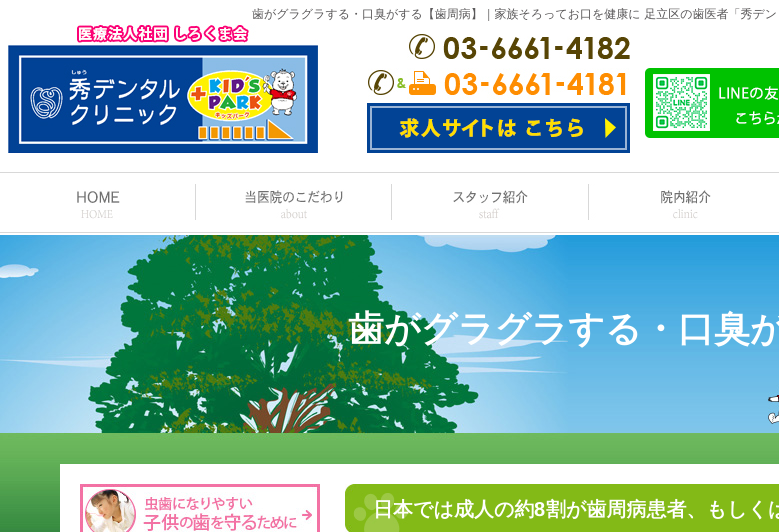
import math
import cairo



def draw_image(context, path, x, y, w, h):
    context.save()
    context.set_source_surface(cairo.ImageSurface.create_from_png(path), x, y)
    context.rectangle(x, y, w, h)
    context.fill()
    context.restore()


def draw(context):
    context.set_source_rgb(1, 1, 1)
    context.paint()
    draw_image(context, "images/1.png", 0, 235, 779, 297)
    draw_image(context, "images/2.png", 8, 24, 310, 129)
    draw_image(context, "images/3.png", 368, 34, 262, 66)
    draw_image(context, "images/4.png", 367, 103, 263, 50)
    draw_image(context, "images/5.png", 645, 68, 134, 70)
    context.set_source_rgb(216 / 255, 216 / 255, 216 / 255)
    context.rectangle(0, 172, 779, 1)
    context.fill()
    context.rectangle(0, 232, 779, 1)
    context.fill()
    draw_image(context, "images/6.png", 77, 184, 119, 36)
    draw_image(context, "images/7.png", 245, 184, 147, 36)
    draw_image(context, "images/8.png", 453, 190, 75, 29)
    draw_image(context, "images/9.png", 588, 184, 123, 36)
    context.set_source_rgb(1, 1, 1)
    context.rectangle(60, 464, 719, 68)
    context.fill()
    draw_image(context, "images/10.png", 80, 484, 240, 48)
    draw_image(context, "images/11.png", 345, 484, 434, 48)
    context.select_font_face("WenQuanYi Zen Hei Medium")
    context.set_font_size(12)
    context.set_source_rgb(89 / 255, 87 / 255, 88 / 255)
    context.move_to(252, 18)
    context.show_text("歯がグラグラする・口臭がする【歯周病】｜家族そろってお口を健康に 足立区の歯医者「秀デン")
    context.select_font_face("WenQuanYi Zen Hei", cairo.FontSlant.NORMAL, cairo.FontWeight.BOLD)
    context.set_font_size(36)
    context.set_source_rgb(1, 1, 1)
    context.move_to(348, 341)
    context.show_text("歯がグラグラする・口臭が")
    context.set_font_size(20)
    context.move_to(373, 516)
    context.show_text("日本では成人の約")
    context.select_font_face("Liberation Sans", cairo.FontSlant.NORMAL, cairo.FontWeight.BOLD)
    context.move_to(534, 516)
    context.show_text("8")
    context.select_font_face("WenQuanYi Zen Hei", cairo.FontSlant.NORMAL, cairo.FontWeight.BOLD)
    context.move_to(546, 516)
    context.show_text("割が歯周病患者、もしくは")


surface = cairo.ImageSurface(cairo.Format.RGB24, 779, 532)
context = cairo.Context(surface)
options = cairo.FontOptions()
options.set_hint_metrics(cairo.HintMetrics.OFF)
options.set_hint_style(cairo.HintStyle.NONE)
context.set_font_options(options)
context.set_miter_limit(4)
draw(context)
surface.write_to_png("out.png")
